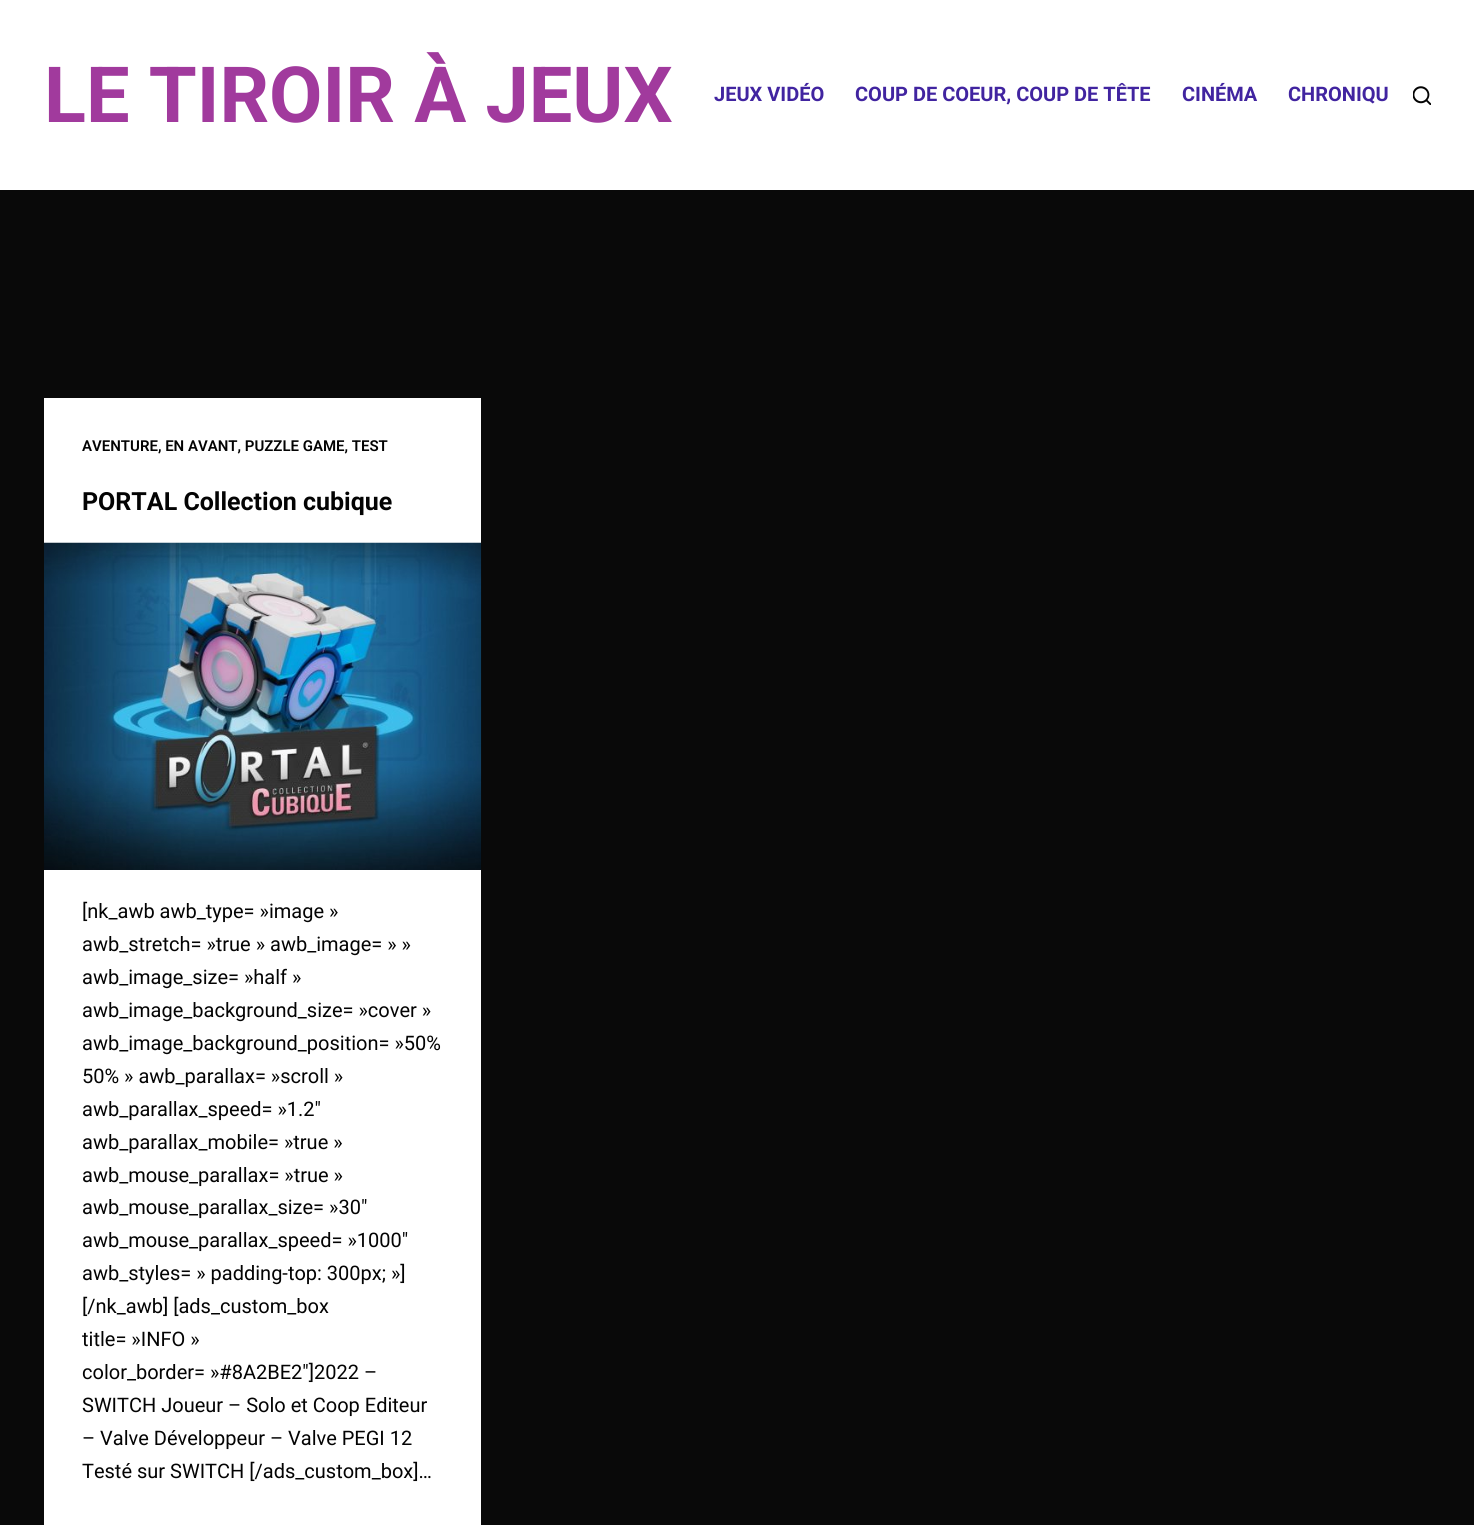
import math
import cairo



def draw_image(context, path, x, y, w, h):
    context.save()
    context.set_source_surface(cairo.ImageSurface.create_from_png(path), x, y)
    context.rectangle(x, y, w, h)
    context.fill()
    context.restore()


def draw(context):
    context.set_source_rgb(9 / 255, 9 / 255, 9 / 255)
    context.paint()
    context.set_source_rgb(1, 1, 1)
    context.rectangle(0, 0, 1474, 190)
    context.fill()
    draw_image(context, "images/1.png", 1413, 86, 18, 19)
    context.rectangle(44, 398, 437, 1127)
    context.fill()
    draw_image(context, "images/2.png", 44, 542, 438, 328)
    context.select_font_face("Roboto", cairo.FontSlant.NORMAL, cairo.FontWeight.BOLD)
    context.set_font_size(77.5)
    context.set_source_rgb(161 / 255, 58 / 255, 157 / 255)
    context.move_to(44, 122)
    context.show_text("LE TIROIR À JEUX")
    context.set_font_size(20)
    context.set_source_rgb(65 / 255, 36 / 255, 160 / 255)
    context.move_to(714, 101)
    context.show_text("JEUX VIDÉO")
    context.move_to(855, 101)
    context.show_text("COUP DE COEUR, COUP DE TÊTE")
    context.move_to(1182, 101)
    context.show_text("CINÉMA")
    context.move_to(1288, 101)
    context.show_text("CHRONIQU")
    context.select_font_face("Roboto SemiBold")
    context.set_font_size(15)
    context.set_source_rgb(3 / 255, 3 / 255, 3 / 255)
    context.move_to(82, 451)
    context.show_text("AVENTURE, EN AVANT, PUZZLE GAME, TEST")
    context.select_font_face("Roboto", cairo.FontSlant.NORMAL, cairo.FontWeight.BOLD)
    context.set_font_size(25)
    context.move_to(82, 510)
    context.show_text("PORTAL Collection cubique")
    context.select_font_face("Roboto")
    context.set_font_size(20)
    context.move_to(82, 918)
    context.show_text("[nk_awb awb_type= »image »")
    context.move_to(82, 951)
    context.show_text("awb_stretch= »true » awb_image= » »")
    context.move_to(82, 984)
    context.show_text("awb_image_size= »half »")
    context.move_to(82, 1017)
    context.show_text("awb_image_background_size= »cover »")
    context.move_to(82, 1050)
    context.show_text("awb_image_background_position= »50%")
    context.move_to(82, 1083)
    context.show_text("50% » awb_parallax= »scroll »")
    context.move_to(82, 1116)
    context.show_text("awb_parallax_speed= »1.2″")
    context.move_to(82, 1149)
    context.show_text("awb_parallax_mobile= »true »")
    context.move_to(82, 1182)
    context.show_text("awb_mouse_parallax= »true »")
    context.move_to(82, 1214)
    context.show_text("awb_mouse_parallax_size= »30″")
    context.move_to(82, 1247)
    context.show_text("awb_mouse_parallax_speed= »1000″")
    context.move_to(82, 1280)
    context.show_text("awb_styles= » padding-top: 300px; »]")
    context.move_to(82, 1313)
    context.show_text("[/nk_awb] [ads_custom_box")
    context.move_to(82, 1346)
    context.show_text("title= »INFO »")
    context.move_to(82, 1379)
    context.show_text("color_border= »#8A2BE2″]2022 –")
    context.move_to(82, 1412)
    context.show_text("SWITCH Joueur – Solo et Coop Editeur")
    context.move_to(82, 1445)
    context.show_text("– Valve Développeur – Valve PEGI 12")
    context.move_to(82, 1478)
    context.show_text("Testé sur SWITCH [/ads_custom_box]…")


surface = cairo.ImageSurface(cairo.Format.RGB24, 1474, 1525)
context = cairo.Context(surface)
options = cairo.FontOptions()
options.set_hint_metrics(cairo.HintMetrics.OFF)
options.set_hint_style(cairo.HintStyle.NONE)
context.set_font_options(options)
context.set_miter_limit(4)
draw(context)
surface.write_to_png("out.png")
